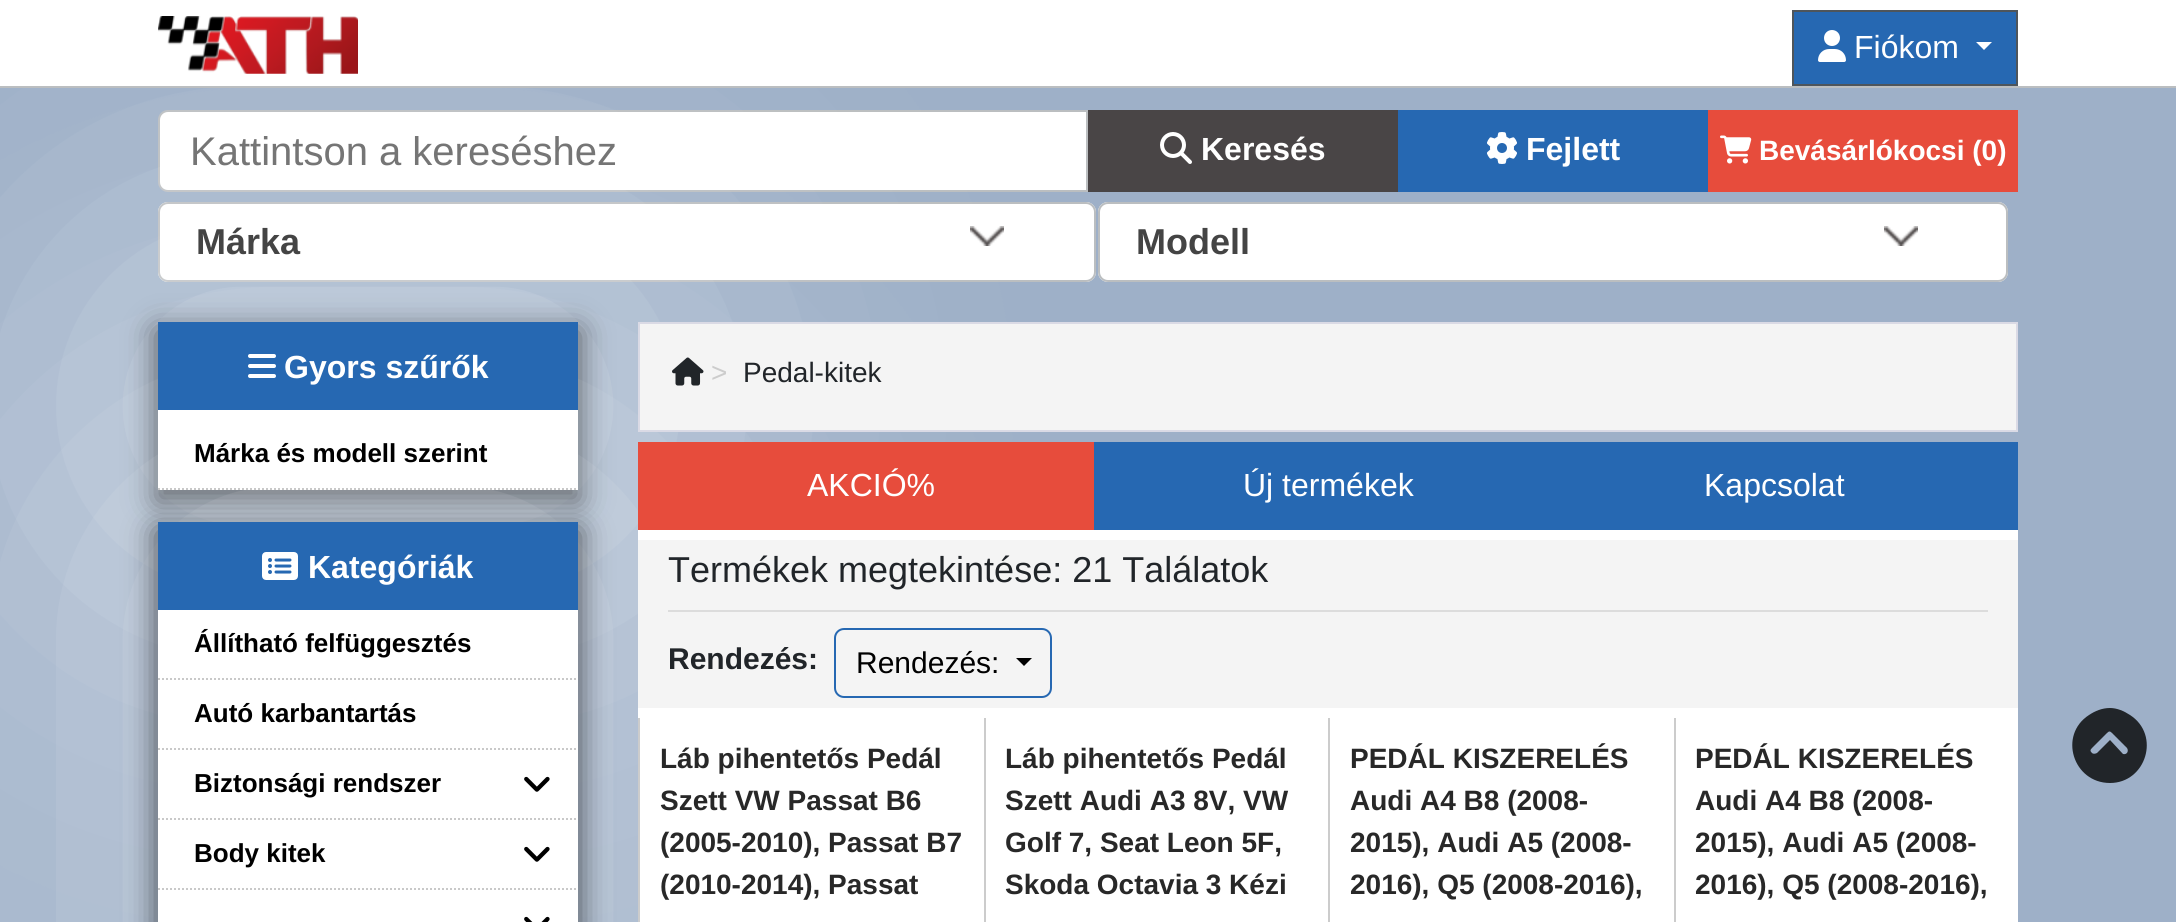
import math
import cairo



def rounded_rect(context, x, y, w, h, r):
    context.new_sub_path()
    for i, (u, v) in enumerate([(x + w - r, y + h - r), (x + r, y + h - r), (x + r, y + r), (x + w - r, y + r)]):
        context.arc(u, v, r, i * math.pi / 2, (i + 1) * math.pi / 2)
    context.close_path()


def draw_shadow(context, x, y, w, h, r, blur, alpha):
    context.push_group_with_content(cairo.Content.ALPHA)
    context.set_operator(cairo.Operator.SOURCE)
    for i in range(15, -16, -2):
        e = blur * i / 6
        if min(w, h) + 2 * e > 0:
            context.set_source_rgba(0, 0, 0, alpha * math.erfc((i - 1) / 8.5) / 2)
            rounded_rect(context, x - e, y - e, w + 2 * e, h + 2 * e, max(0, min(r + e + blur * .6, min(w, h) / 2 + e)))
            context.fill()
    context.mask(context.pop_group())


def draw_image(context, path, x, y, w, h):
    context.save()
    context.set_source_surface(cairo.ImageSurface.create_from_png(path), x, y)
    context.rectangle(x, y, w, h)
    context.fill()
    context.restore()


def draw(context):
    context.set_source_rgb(158 / 255, 176 / 255, 200 / 255)
    context.paint()
    context.set_source_rgb(1, 1, 1)
    context.new_path()
    context.move_to(168, 111)
    context.line_to(1087, 111)
    context.line_to(1087, 191)
    context.line_to(168, 191)
    context.curve_to(163, 191, 159, 187, 159, 182)
    context.line_to(159, 120)
    context.curve_to(159, 115, 163, 111, 168, 111)
    context.close_path()
    context.fill_preserve()
    context.set_source_rgb(187 / 255, 190 / 255, 192 / 255)
    context.stroke()
    context.set_source_rgb(73 / 255, 69 / 255, 70 / 255)
    context.rectangle(1088, 110, 310, 82)
    context.fill()
    draw_image(context, "images/3.png", 1160, 132, 32, 32)
    context.set_source_rgb(1, 1, 1)
    rounded_rect(context, 158, 202, 938, 80, 10)
    context.fill()
    draw_image(context, "images/6.png", 970, 226, 34, 20)
    rounded_rect(context, 159, 203, 936, 78, 9)
    context.set_source_rgb(187 / 255, 190 / 255, 192 / 255)
    context.stroke()
    context.set_source_rgb(1, 1, 1)
    rounded_rect(context, 1098, 202, 910, 80, 10)
    context.fill()
    draw_image(context, "images/6.png", 1884, 226, 34, 20)
    rounded_rect(context, 1099, 203, 908, 78, 9)
    context.set_source_rgb(187 / 255, 190 / 255, 192 / 255)
    context.stroke()
    context.set_source_rgb(1, 1, 1)
    draw_shadow(context, 156, 320, 424, 172, 0, 200, 0.5)
    context.set_source_rgb(0, 0, 0)
    draw_shadow(context, 156, 330, 424, 172, 0, 15, 0.6)
    context.set_source_rgb(1, 1, 1)
    context.rectangle(158, 410, 420, 80)
    context.fill()
    context.set_source_rgb(1, 1, 1)
    draw_shadow(context, 156, 520, 424, 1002, 0, 200, 0.5)
    context.set_source_rgb(1, 1, 1)
    context.rectangle(0, 0, 2176, 86)
    context.fill()
    context.set_source_rgb(187 / 255, 190 / 255, 192 / 255)
    context.rectangle(0, 86, 2176, 2)
    context.fill()
    draw_image(context, "images/1.png", 158, 16, 200, 58)
    context.set_source_rgb(38 / 255, 104 / 255, 178 / 255)
    context.rectangle(1793, 11, 224, 74)
    context.fill_preserve()
    context.set_source_rgb(78 / 255, 85 / 255, 91 / 255)
    context.stroke()
    draw_image(context, "images/2.png", 1818, 30, 28, 32)
    context.set_source_rgb(1, 1, 1)
    context.new_path()
    context.move_to(1976, 42)
    context.line_to(1992, 42)
    context.line_to(1984, 50)
    context.close_path()
    context.fill()
    context.set_source_rgb(38 / 255, 104 / 255, 178 / 255)
    context.rectangle(1398, 110, 310, 82)
    context.fill()
    draw_image(context, "images/4.png", 1487, 132, 30, 32)
    context.set_source_rgb(231 / 255, 76 / 255, 60 / 255)
    context.rectangle(1708, 110, 310, 82)
    context.fill()
    draw_image(context, "images/5.png", 1720, 135, 32, 29)
    context.set_source_rgb(38 / 255, 104 / 255, 178 / 255)
    context.rectangle(158, 322, 420, 88)
    context.fill()
    draw_image(context, "images/7.png", 248, 354, 28, 24)
    context.set_source_rgb(0, 0, 0)
    draw_shadow(context, 156, 530, 424, 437, 0, 15, 0.6)
    context.new_path()
    context.move_to(158, 489)
    context.line_to(578, 489)
    context.set_source_rgb(201 / 255, 201 / 255, 201 / 255)
    context.set_dash([2, 2])
    context.stroke()
    context.set_source_rgb(1, 1, 1)
    context.rectangle(158, 610, 420, 312)
    context.fill()
    context.set_source_rgb(38 / 255, 104 / 255, 178 / 255)
    context.rectangle(158, 522, 420, 88)
    context.fill()
    draw_image(context, "images/8.png", 262, 552, 36, 28)
    context.new_path()
    context.move_to(158, 679)
    context.line_to(578, 679)
    context.set_source_rgb(201 / 255, 201 / 255, 201 / 255)
    context.stroke()
    context.new_path()
    context.move_to(158, 749)
    context.line_to(578, 749)
    context.stroke()
    context.new_path()
    context.move_to(158, 819)
    context.line_to(578, 819)
    context.stroke()
    draw_image(context, "images/9.png", 524, 776, 26, 16)
    context.new_path()
    context.move_to(158, 889)
    context.line_to(578, 889)
    context.stroke()
    draw_image(context, "images/9.png", 524, 846, 26, 16)
    draw_image(context, "images/10.png", 524, 916, 26, 6)
    context.set_source_rgb(244 / 255, 244 / 255, 244 / 255)
    context.rectangle(639, 323, 1378, 108)
    context.fill_preserve()
    context.set_source_rgb(218 / 255, 218 / 255, 229 / 255)
    context.set_dash([])
    context.stroke()
    draw_image(context, "images/11.png", 672, 357, 32, 29)
    context.set_source_rgb(1, 1, 1)
    context.rectangle(638, 530, 1380, 392)
    context.fill()
    context.set_source_rgb(231 / 255, 76 / 255, 60 / 255)
    context.rectangle(638, 442, 456, 88)
    context.fill()
    context.set_source_rgb(38 / 255, 104 / 255, 178 / 255)
    context.rectangle(1094, 442, 924, 88)
    context.fill()
    context.set_source_rgb(244 / 255, 244 / 255, 244 / 255)
    context.rectangle(638, 540, 1380, 168)
    context.fill()
    context.set_source_rgb(220 / 255, 220 / 255, 220 / 255)
    context.rectangle(668, 610, 1320, 2)
    context.fill()
    rounded_rect(context, 835, 629, 216, 68, 9)
    context.set_source_rgb(38 / 255, 104 / 255, 178 / 255)
    context.stroke()
    context.set_source_rgb(0, 0, 0)
    context.new_path()
    context.move_to(1016, 658)
    context.line_to(1032, 658)
    context.line_to(1024, 666)
    context.close_path()
    context.fill()
    context.set_source_rgb(204 / 255, 204 / 255, 204 / 255)
    context.rectangle(638, 718, 2, 204)
    context.fill()
    context.rectangle(984, 718, 2, 204)
    context.fill()
    context.rectangle(1328, 718, 2, 204)
    context.fill()
    context.rectangle(1674, 718, 2, 204)
    context.fill()
    context.set_source_rgb(33 / 255, 37 / 255, 41 / 255)
    context.new_path()
    context.move_to(2110, 783)
    context.curve_to(2146, 783, 2161, 735, 2130, 715)
    context.curve_to(2124, 711, 2117, 708, 2110, 708)
    context.curve_to(2102, 708, 2095, 711, 2089, 715)
    context.curve_to(2058, 735, 2073, 783, 2110, 783)
    context.close_path()
    context.move_to(2127, 748)
    context.curve_to(2129, 751, 2127, 755, 2123, 754)
    context.line_to(2110, 740)
    context.line_to(2097, 753)
    context.curve_to(2095, 754, 2093, 754, 2092, 753)
    context.curve_to(2090, 751, 2090, 750, 2092, 748)
    context.line_to(2107, 733)
    context.curve_to(2109, 731, 2110, 731, 2112, 733)
    context.close_path()
    context.fill()
    context.select_font_face("Liberation Sans")
    context.set_font_size(32)
    context.set_source_rgb(1, 1, 1)
    context.move_to(1854, 58)
    context.show_text("Fiókom")
    context.set_font_size(40)
    context.set_source_rgb(117 / 255, 117 / 255, 117 / 255)
    context.move_to(190, 165)
    context.show_text("Kattintson a kereséshez")
    context.select_font_face("Liberation Sans", cairo.FontSlant.NORMAL, cairo.FontWeight.BOLD)
    context.set_font_size(32)
    context.set_source_rgb(1, 1, 1)
    context.move_to(1201, 160)
    context.show_text("Keresés")
    context.move_to(1526, 160)
    context.show_text("Fejlett")
    context.set_font_size(28)
    context.move_to(1759, 160)
    context.show_text("Bevásárlókocsi (0)")
    context.set_font_size(36)
    context.set_source_rgb(68 / 255, 68 / 255, 68 / 255)
    context.move_to(196, 254)
    context.show_text("Márka")
    context.move_to(1136, 254)
    context.show_text("Modell")
    context.set_font_size(32)
    context.set_source_rgb(1, 1, 1)
    context.move_to(284, 378)
    context.show_text("Gyors szűrők")
    context.set_font_size(26)
    context.set_source_rgb(0, 0, 0)
    context.move_to(194, 462)
    context.show_text("Márka és modell szerint")
    context.set_font_size(32)
    context.set_source_rgb(1, 1, 1)
    context.move_to(308, 578)
    context.show_text("Kategóriák")
    context.set_font_size(26)
    context.set_source_rgb(0, 0, 0)
    context.move_to(194, 652)
    context.show_text("Állítható felfüggesztés")
    context.move_to(194, 722)
    context.show_text("Autó karbantartás")
    context.move_to(194, 792)
    context.show_text("Biztonsági rendszer")
    context.move_to(194, 862)
    context.show_text("Body kitek")
    context.select_font_face("Liberation Sans")
    context.set_font_size(28)
    context.set_source_rgb(204 / 255, 204 / 255, 204 / 255)
    context.move_to(711, 382)
    context.show_text(">")
    context.set_source_rgb(33 / 255, 37 / 255, 41 / 255)
    context.move_to(743, 382)
    context.show_text("Pedal-kitek")
    context.set_font_size(32)
    context.set_source_rgb(1, 1, 1)
    context.move_to(807, 496)
    context.show_text("AKCIÓ%")
    context.move_to(1243, 496)
    context.show_text("Új termékek")
    context.move_to(1704, 496)
    context.show_text("Kapcsolat")
    context.set_font_size(36)
    context.set_source_rgb(33 / 255, 37 / 255, 41 / 255)
    context.move_to(668, 582)
    context.show_text("Termékek megtekintése: 21 Találatok")
    context.select_font_face("Liberation Sans", cairo.FontSlant.NORMAL, cairo.FontWeight.BOLD)
    context.set_font_size(30)
    context.move_to(668, 669)
    context.show_text("Rendezés:")
    context.select_font_face("Liberation Sans")
    context.set_source_rgb(0, 0, 0)
    context.move_to(856, 673)
    context.show_text("Rendezés:")
    context.select_font_face("Liberation Sans", cairo.FontSlant.NORMAL, cairo.FontWeight.BOLD)
    context.set_font_size(28)
    context.set_source_rgb(40 / 255, 40 / 255, 40 / 255)
    context.move_to(660, 768)
    context.show_text("Láb pihentetős Pedál")
    context.move_to(660, 810)
    context.show_text("Szett VW Passat B6")
    context.move_to(660, 852)
    context.show_text("(2005-2010), Passat B7")
    context.move_to(660, 894)
    context.show_text("(2010-2014), Passat")
    context.move_to(1005, 768)
    context.show_text("Láb pihentetős Pedál")
    context.move_to(1005, 810)
    context.show_text("Szett Audi A3 8V, VW")
    context.move_to(1005, 852)
    context.show_text("Golf 7, Seat Leon 5F,")
    context.move_to(1005, 894)
    context.show_text("Skoda Octavia 3 Kézi")
    context.move_to(1350, 768)
    context.show_text("PEDÁL KISZERELÉS")
    context.move_to(1350, 810)
    context.show_text("Audi A4 B8 (2008-")
    context.move_to(1350, 852)
    context.show_text("2015), Audi A5 (2008-")
    context.move_to(1350, 894)
    context.show_text("2016), Q5 (2008-2016),")
    context.move_to(1695, 768)
    context.show_text("PEDÁL KISZERELÉS")
    context.move_to(1695, 810)
    context.show_text("Audi A4 B8 (2008-")
    context.move_to(1695, 852)
    context.show_text("2015), Audi A5 (2008-")
    context.move_to(1695, 894)
    context.show_text("2016), Q5 (2008-2016),")


surface = cairo.ImageSurface(cairo.Format.RGB24, 2176, 922)
context = cairo.Context(surface)
options = cairo.FontOptions()
options.set_hint_metrics(cairo.HintMetrics.OFF)
options.set_hint_style(cairo.HintStyle.NONE)
context.set_font_options(options)
context.set_miter_limit(4)
draw(context)
surface.write_to_png("out.png")
